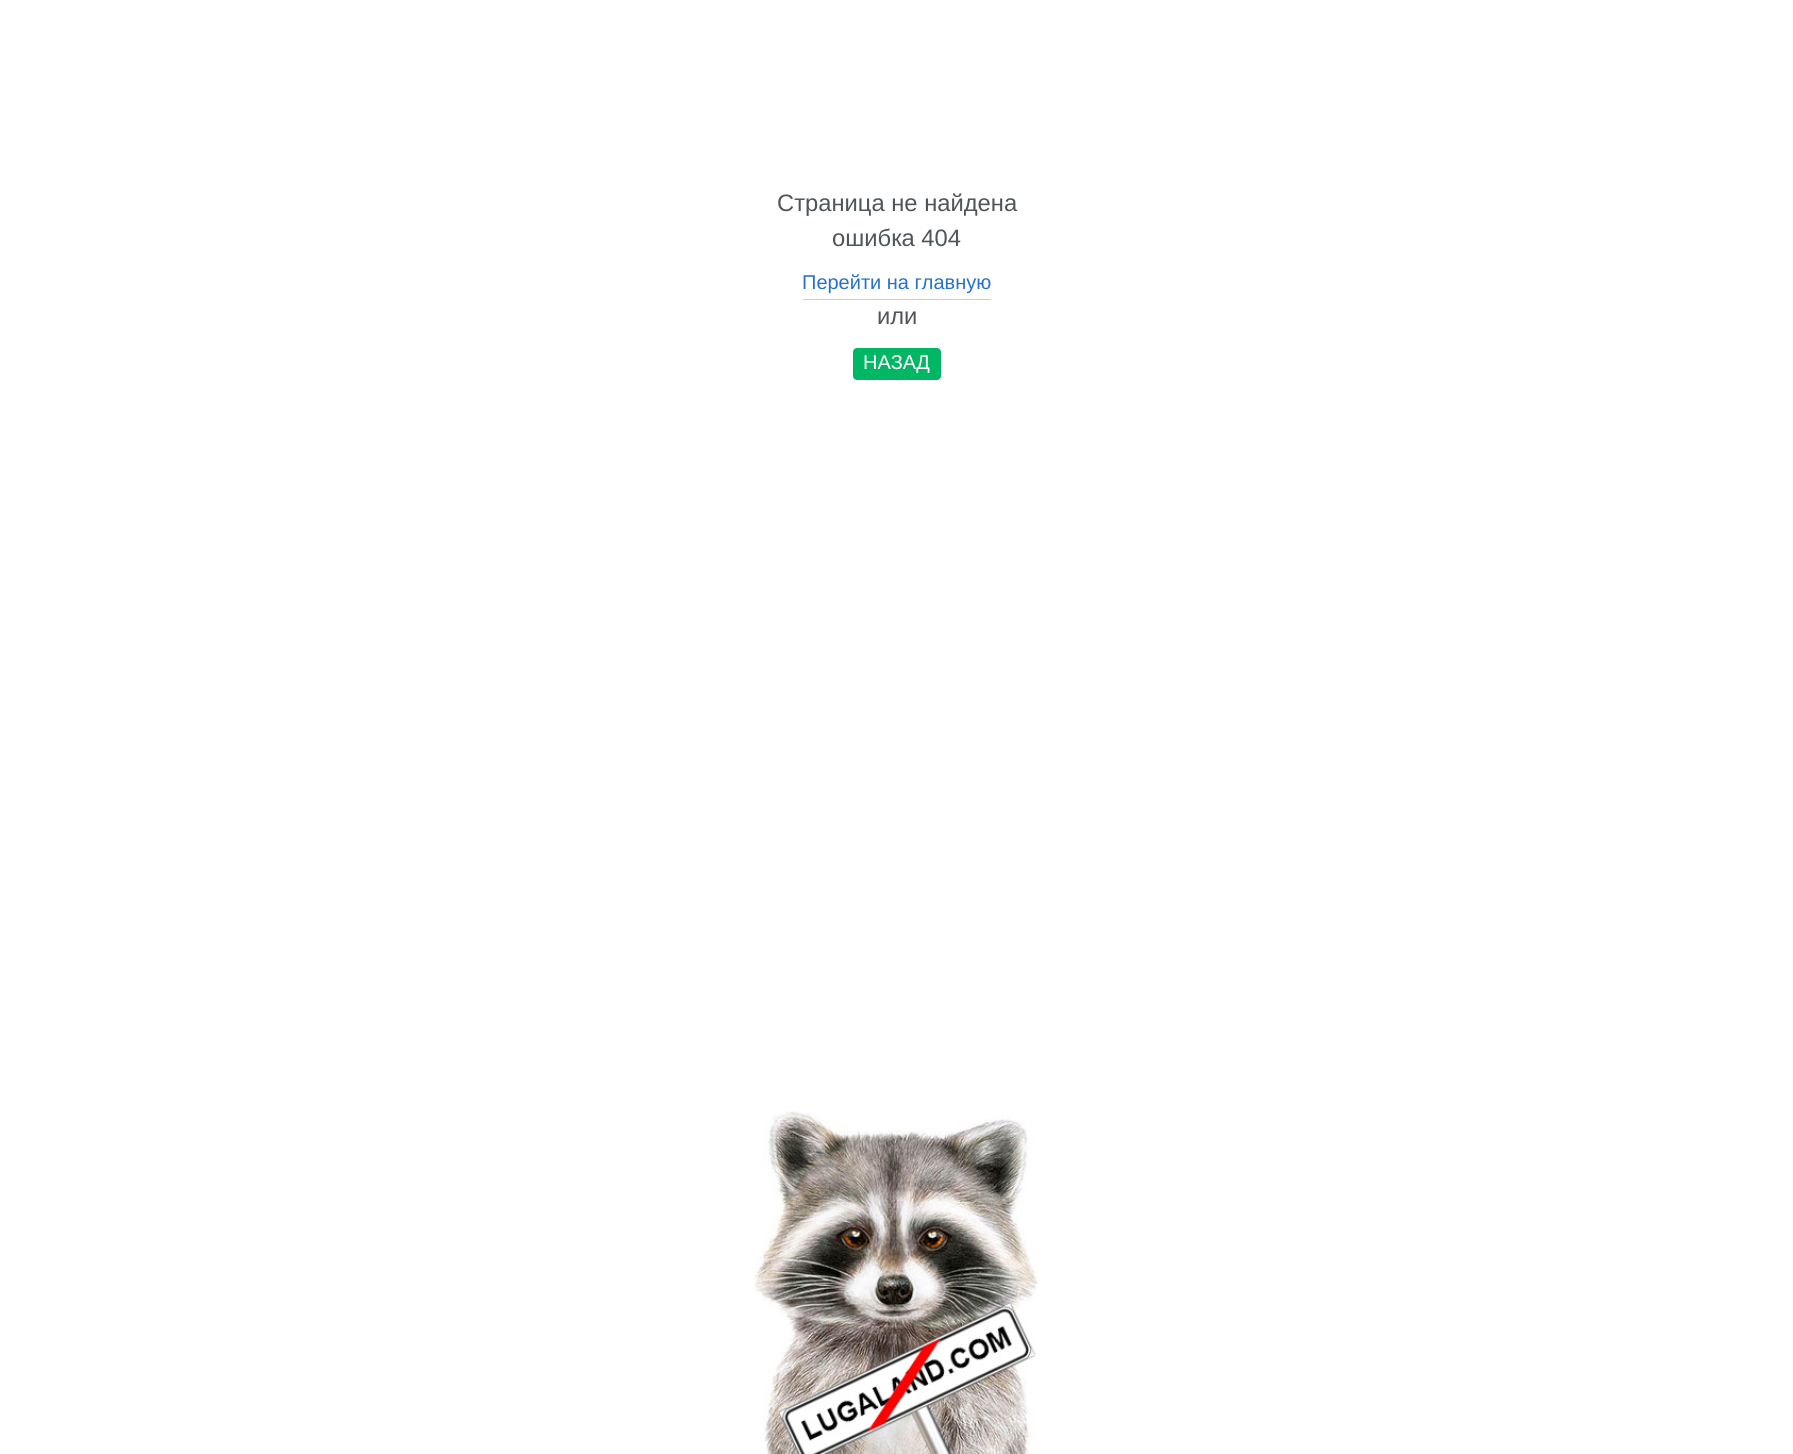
import math
import cairo



def rounded_rect(context, x, y, w, h, r):
    context.new_sub_path()
    for i, (u, v) in enumerate([(x + w - r, y + h - r), (x + r, y + h - r), (x + r, y + r), (x + w - r, y + r)]):
        context.arc(u, v, r, i * math.pi / 2, (i + 1) * math.pi / 2)
    context.close_path()


def draw_image(context, path, x, y, w, h):
    context.save()
    context.set_source_surface(cairo.ImageSurface.create_from_png(path), x, y)
    context.rectangle(x, y, w, h)
    context.fill()
    context.restore()


def draw(context):
    context.set_source_rgb(1, 1, 1)
    context.paint()
    context.set_source_rgb(180 / 255, 210 / 255, 243 / 255)
    context.rectangle(803, 299, 188, 1)
    context.fill()
    context.set_source_rgb(2 / 255, 183 / 255, 100 / 255)
    rounded_rect(context, 853.5, 348.5, 87, 31, 3.5)
    context.fill_preserve()
    context.set_line_width(1)
    context.stroke()
    draw_image(context, "images/1.png", 754, 1111, 284, 343)
    context.select_font_face("Liberation Sans")
    context.set_font_size(23.75)
    context.set_source_rgb(80 / 255, 85 / 255, 90 / 255)
    context.move_to(777, 211)
    context.show_text("Страница не найдена")
    context.move_to(832, 246)
    context.show_text("ошибка 404")
    context.set_font_size(20)
    context.set_source_rgb(39 / 255, 114 / 255, 199 / 255)
    context.move_to(802, 289)
    context.show_text("Перейти на главную")
    context.set_font_size(23.75)
    context.set_source_rgb(80 / 255, 85 / 255, 90 / 255)
    context.move_to(877, 324)
    context.show_text("или")
    context.set_font_size(20)
    context.set_source_rgb(1, 1, 1)
    context.move_to(863, 369)
    context.show_text("НАЗАД")


surface = cairo.ImageSurface(cairo.Format.RGB24, 1793, 1454)
context = cairo.Context(surface)
options = cairo.FontOptions()
options.set_hint_metrics(cairo.HintMetrics.OFF)
options.set_hint_style(cairo.HintStyle.NONE)
context.set_font_options(options)
context.set_miter_limit(4)
draw(context)
surface.write_to_png("out.png")
